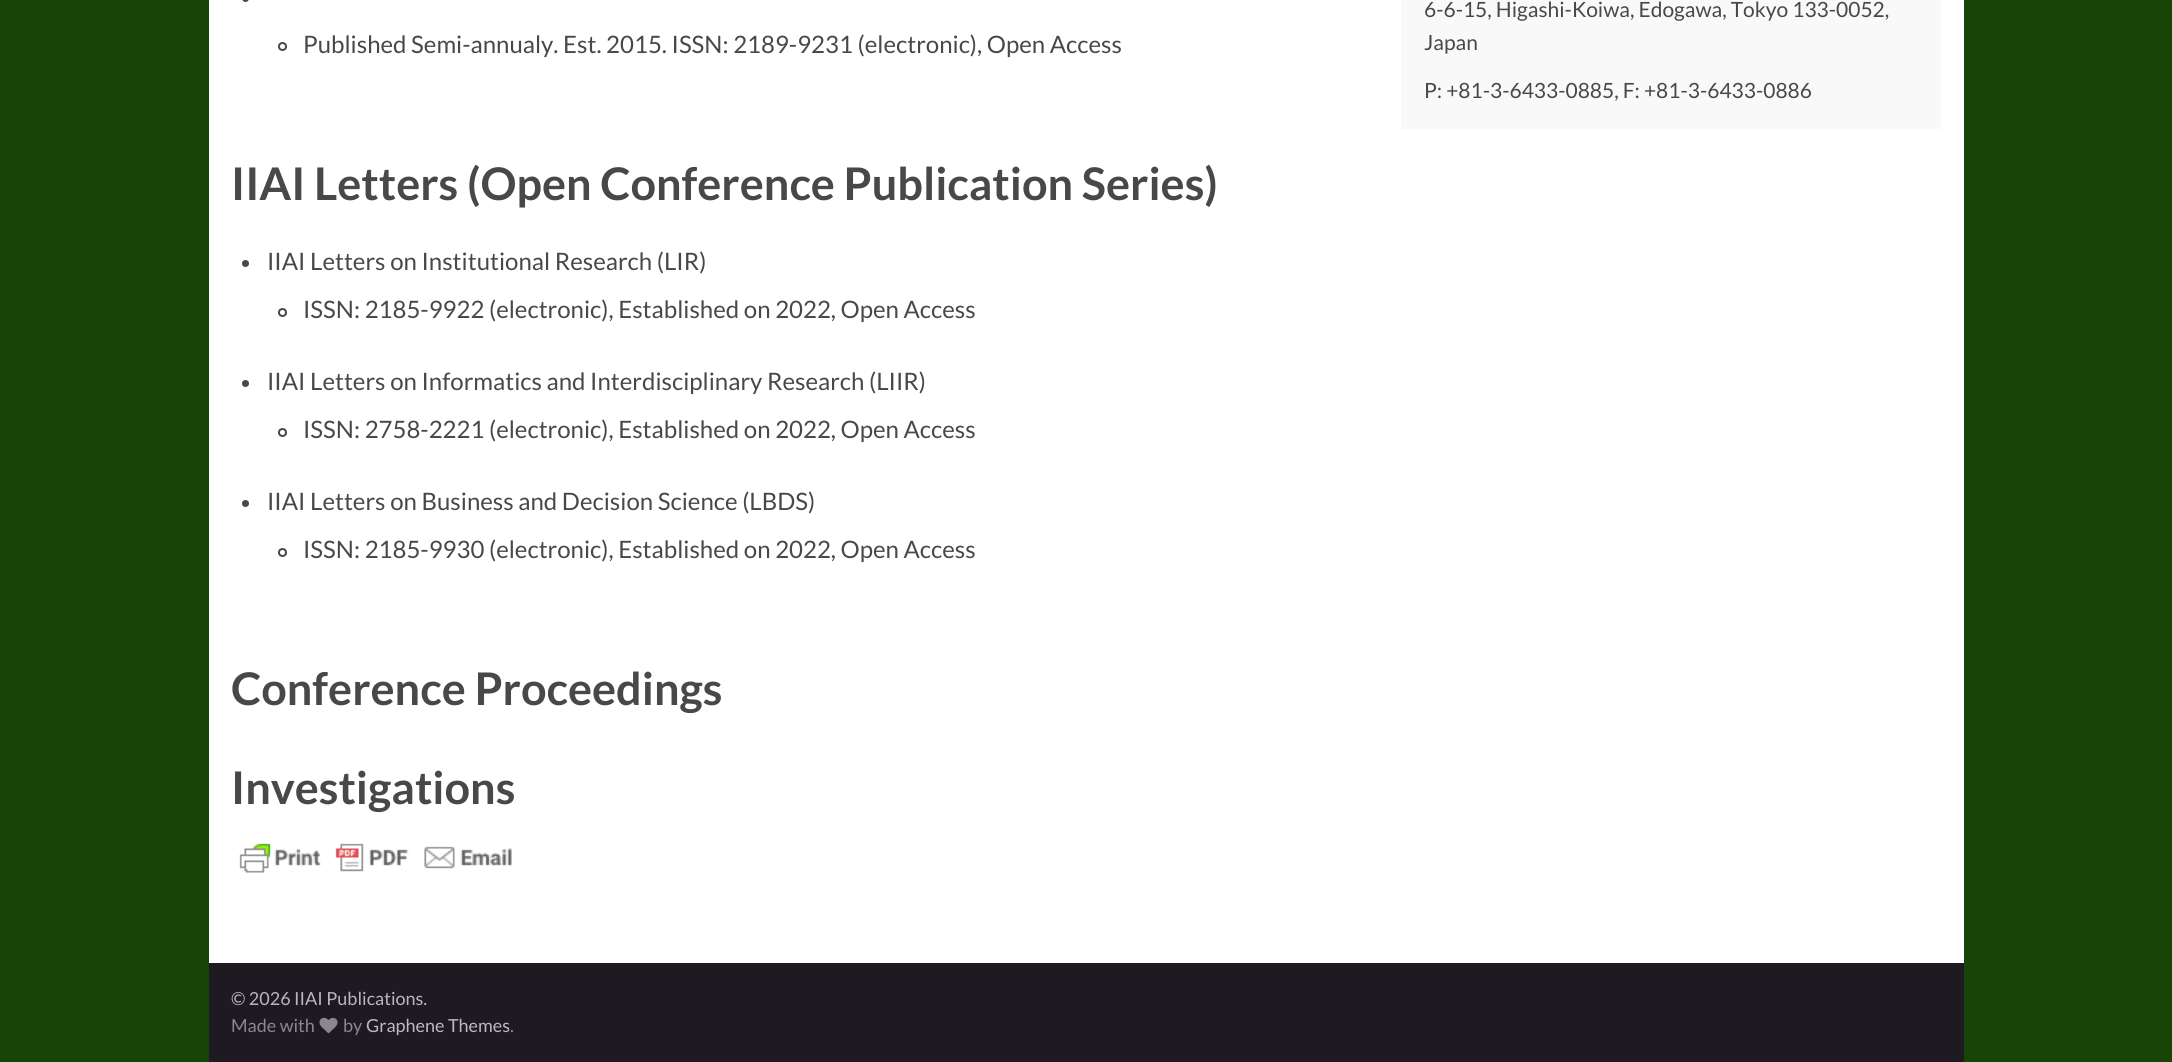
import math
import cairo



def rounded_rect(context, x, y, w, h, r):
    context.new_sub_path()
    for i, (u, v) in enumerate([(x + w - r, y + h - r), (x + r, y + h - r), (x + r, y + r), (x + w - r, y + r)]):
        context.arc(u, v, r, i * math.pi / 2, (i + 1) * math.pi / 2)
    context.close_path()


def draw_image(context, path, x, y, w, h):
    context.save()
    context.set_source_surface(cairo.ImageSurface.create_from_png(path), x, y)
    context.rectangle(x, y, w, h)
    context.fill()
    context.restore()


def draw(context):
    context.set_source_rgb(24 / 255, 68 / 255, 7 / 255)
    context.paint()
    context.set_source_rgb(1, 1, 1)
    context.rectangle(209, 0, 1755, 963)
    context.fill()
    context.set_source_rgb(74 / 255, 71 / 255, 75 / 255)
    rounded_rect(context, 242, -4, 7, 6, 3.5)
    context.fill()
    context.arc(282.5, 46.5, 3.5, 0, 2 * math.pi)
    context.stroke()
    context.arc(245.5, 263.5, 3.5, 0, 2 * math.pi)
    context.fill()
    context.arc(282.5, 312.5, 3.5, 0, 2 * math.pi)
    context.stroke()
    context.arc(245.5, 383.5, 3.5, 0, 2 * math.pi)
    context.fill()
    context.arc(282.5, 432.5, 3.5, 0, 2 * math.pi)
    context.stroke()
    context.arc(245.5, 503.5, 3.5, 0, 2 * math.pi)
    context.fill()
    context.arc(282.5, 552.5, 3.5, 0, 2 * math.pi)
    context.stroke()
    draw_image(context, "images/1.png", 239, 843, 273, 30)
    context.set_source_rgb(249 / 255, 249 / 255, 249 / 255)
    context.rectangle(1401, 0, 540, 129)
    context.fill()
    context.set_source_rgb(31 / 255, 26 / 255, 34 / 255)
    context.rectangle(209, 963, 1755, 99)
    context.fill()
    draw_image(context, "images/2.png", 319, 1017, 19, 17)
    context.select_font_face("Lato")
    context.set_font_size(24)
    context.set_source_rgb(74 / 255, 71 / 255, 75 / 255)
    context.move_to(303, 53)
    context.show_text("Published Semi-annualy. Est. 2015. ISSN: 2189-9231 (electronic), Open Access")
    context.select_font_face("Lato", cairo.FontSlant.NORMAL, cairo.FontWeight.BOLD)
    context.set_font_size(45)
    context.move_to(231, 200)
    context.show_text("IIAI Letters (Open Conference Publication Series)")
    context.select_font_face("Lato")
    context.set_font_size(24)
    context.move_to(267, 270)
    context.show_text("IIAI Letters on Institutional Research (LIR)")
    context.move_to(303, 318)
    context.show_text("ISSN: 2185-9922 (electronic), Established on 2022, Open Access")
    context.move_to(267, 390)
    context.show_text("IIAI Letters on Informatics and Interdisciplinary Research (LIIR)")
    context.move_to(303, 438)
    context.show_text("ISSN: 2758-2221 (electronic), Established on 2022, Open Access")
    context.move_to(267, 510)
    context.show_text("IIAI Letters on Business and Decision Science (LBDS)")
    context.move_to(303, 558)
    context.show_text("ISSN: 2185-9930 (electronic), Established on 2022, Open Access")
    context.select_font_face("Lato", cairo.FontSlant.NORMAL, cairo.FontWeight.BOLD)
    context.set_font_size(45)
    context.move_to(231, 705)
    context.show_text("Conference Proceedings")
    context.move_to(231, 804)
    context.show_text("Investigations")
    context.select_font_face("Lato")
    context.set_font_size(21)
    context.move_to(1424, 17)
    context.show_text("6-6-15, Higashi-Koiwa, Edogawa, Tokyo 133-0052,")
    context.move_to(1424, 50)
    context.show_text("Japan")
    context.move_to(1424, 98)
    context.show_text("P: +81-3-6433-0885, F: +81-3-6433-0886")
    context.set_font_size(18)
    context.set_source_rgb(188 / 255, 180 / 255, 193 / 255)
    context.move_to(231, 1005)
    context.show_text("© 2026 IIAI Publications.")
    context.set_source_rgb(141 / 255, 134 / 255, 145 / 255)
    context.move_to(231, 1032)
    context.show_text("Made with")
    context.move_to(343, 1032)
    context.show_text("by")
    context.set_source_rgb(188 / 255, 186 / 255, 189 / 255)
    context.move_to(366, 1032)
    context.show_text("Graphene Themes")
    context.set_source_rgb(141 / 255, 134 / 255, 145 / 255)
    context.move_to(510, 1032)
    context.show_text(".")


surface = cairo.ImageSurface(cairo.Format.RGB24, 2172, 1062)
context = cairo.Context(surface)
options = cairo.FontOptions()
options.set_hint_metrics(cairo.HintMetrics.OFF)
options.set_hint_style(cairo.HintStyle.NONE)
context.set_font_options(options)
context.set_miter_limit(4)
draw(context)
surface.write_to_png("out.png")
